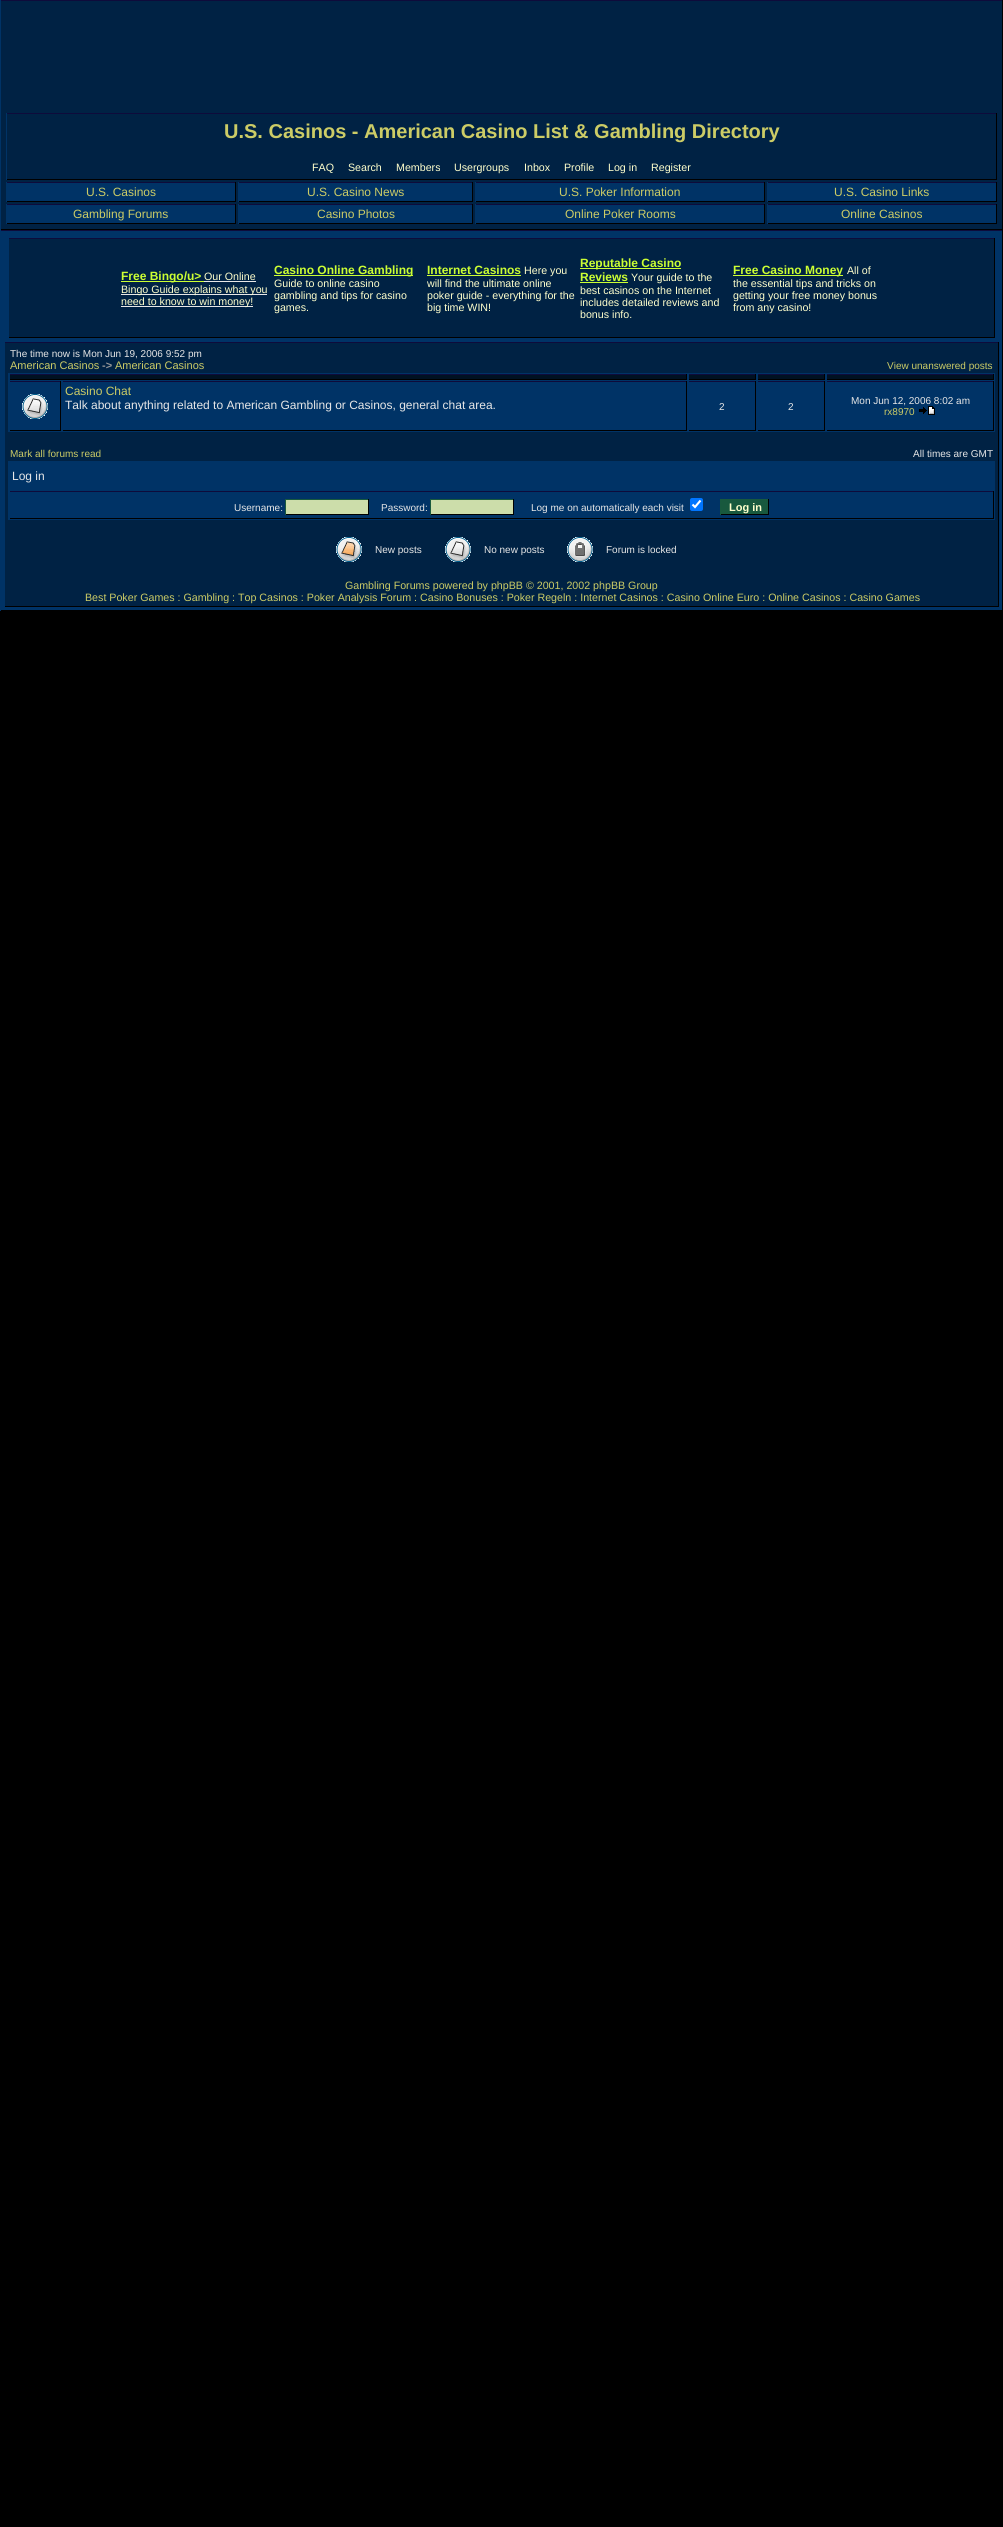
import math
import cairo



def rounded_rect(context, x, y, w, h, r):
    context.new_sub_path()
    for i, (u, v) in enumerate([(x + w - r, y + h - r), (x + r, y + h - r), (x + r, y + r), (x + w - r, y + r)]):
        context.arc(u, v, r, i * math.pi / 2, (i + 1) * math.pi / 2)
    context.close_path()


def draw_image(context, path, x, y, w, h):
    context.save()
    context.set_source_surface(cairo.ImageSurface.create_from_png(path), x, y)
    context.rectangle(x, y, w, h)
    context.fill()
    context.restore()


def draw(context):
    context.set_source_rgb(0, 0, 0)
    context.paint()
    context.set_source_rgb(0, 34 / 255, 68 / 255)
    context.rectangle(1, 1, 1001, 228)
    context.fill()
    context.set_source_rgb(14 / 255, 11 / 255, 59 / 255)
    context.rectangle(0, 0, 1003, 1)
    context.fill()
    context.set_source_rgb(0, 0, 0)
    context.rectangle(1002, 0, 1, 1)
    context.fill()
    context.set_source_rgb(0, 51 / 255, 102 / 255)
    context.rectangle(0, 0, 1, 230)
    context.fill()
    context.set_source_rgb(14 / 255, 11 / 255, 59 / 255)
    context.rectangle(6, 113, 991, 1)
    context.fill()
    context.set_source_rgb(0, 0, 0)
    context.rectangle(996, 113, 1, 67)
    context.fill()
    context.rectangle(6, 179, 991, 1)
    context.fill()
    context.set_source_rgb(0, 51 / 255, 102 / 255)
    context.rectangle(6, 113, 1, 67)
    context.fill()
    context.rectangle(7, 183, 228, 18)
    context.fill()
    context.set_source_rgb(14 / 255, 11 / 255, 59 / 255)
    context.rectangle(6, 182, 230, 1)
    context.fill()
    context.set_source_rgb(0, 0, 0)
    context.rectangle(235, 182, 1, 20)
    context.fill()
    context.rectangle(6, 201, 230, 1)
    context.fill()
    context.set_source_rgb(0, 51 / 255, 102 / 255)
    context.rectangle(6, 182, 1, 20)
    context.fill()
    context.rectangle(239, 183, 233, 18)
    context.fill()
    context.set_source_rgb(14 / 255, 11 / 255, 59 / 255)
    context.rectangle(238, 182, 235, 1)
    context.fill()
    context.set_source_rgb(0, 0, 0)
    context.rectangle(472, 182, 1, 20)
    context.fill()
    context.rectangle(238, 201, 235, 1)
    context.fill()
    context.set_source_rgb(0, 51 / 255, 102 / 255)
    context.rectangle(238, 182, 1, 20)
    context.fill()
    context.rectangle(476, 183, 288, 18)
    context.fill()
    context.set_source_rgb(14 / 255, 11 / 255, 59 / 255)
    context.rectangle(475, 182, 290, 1)
    context.fill()
    context.set_source_rgb(0, 0, 0)
    context.rectangle(764, 182, 1, 20)
    context.fill()
    context.rectangle(475, 201, 290, 1)
    context.fill()
    context.set_source_rgb(0, 51 / 255, 102 / 255)
    context.rectangle(475, 182, 1, 20)
    context.fill()
    context.rectangle(768, 183, 228, 18)
    context.fill()
    context.set_source_rgb(14 / 255, 11 / 255, 59 / 255)
    context.rectangle(767, 182, 230, 1)
    context.fill()
    context.set_source_rgb(0, 0, 0)
    context.rectangle(996, 182, 1, 20)
    context.fill()
    context.rectangle(767, 201, 230, 1)
    context.fill()
    context.set_source_rgb(0, 51 / 255, 102 / 255)
    context.rectangle(767, 182, 1, 20)
    context.fill()
    context.rectangle(7, 205, 228, 18)
    context.fill()
    context.set_source_rgb(14 / 255, 11 / 255, 59 / 255)
    context.rectangle(6, 204, 230, 1)
    context.fill()
    context.set_source_rgb(0, 0, 0)
    context.rectangle(235, 204, 1, 20)
    context.fill()
    context.rectangle(6, 223, 230, 1)
    context.fill()
    context.set_source_rgb(0, 51 / 255, 102 / 255)
    context.rectangle(6, 204, 1, 20)
    context.fill()
    context.rectangle(239, 205, 233, 18)
    context.fill()
    context.set_source_rgb(14 / 255, 11 / 255, 59 / 255)
    context.rectangle(238, 204, 235, 1)
    context.fill()
    context.set_source_rgb(0, 0, 0)
    context.rectangle(472, 204, 1, 20)
    context.fill()
    context.rectangle(238, 223, 235, 1)
    context.fill()
    context.set_source_rgb(0, 51 / 255, 102 / 255)
    context.rectangle(238, 204, 1, 20)
    context.fill()
    context.rectangle(476, 205, 288, 18)
    context.fill()
    context.set_source_rgb(14 / 255, 11 / 255, 59 / 255)
    context.rectangle(475, 204, 290, 1)
    context.fill()
    context.set_source_rgb(0, 0, 0)
    context.rectangle(764, 204, 1, 20)
    context.fill()
    context.rectangle(475, 223, 290, 1)
    context.fill()
    context.set_source_rgb(0, 51 / 255, 102 / 255)
    context.rectangle(475, 204, 1, 20)
    context.fill()
    context.rectangle(768, 205, 228, 18)
    context.fill()
    context.set_source_rgb(14 / 255, 11 / 255, 59 / 255)
    context.rectangle(767, 204, 230, 1)
    context.fill()
    context.set_source_rgb(0, 0, 0)
    context.rectangle(996, 204, 1, 20)
    context.fill()
    context.rectangle(767, 223, 230, 1)
    context.fill()
    context.set_source_rgb(0, 51 / 255, 102 / 255)
    context.rectangle(767, 204, 1, 20)
    context.fill()
    context.rectangle(1, 231, 1001, 379)
    context.fill()
    context.set_source_rgb(14 / 255, 11 / 255, 59 / 255)
    context.rectangle(0, 230, 1003, 1)
    context.fill()
    context.set_source_rgb(0, 0, 0)
    context.rectangle(1002, 230, 1, 1)
    context.fill()
    context.set_source_rgb(0, 51 / 255, 102 / 255)
    context.rectangle(0, 230, 1, 381)
    context.fill()
    context.set_source_rgb(0, 34 / 255, 68 / 255)
    context.rectangle(9, 239, 985, 98)
    context.fill()
    context.set_source_rgb(14 / 255, 11 / 255, 59 / 255)
    context.rectangle(8, 238, 987, 1)
    context.fill()
    context.set_source_rgb(0, 0, 0)
    context.rectangle(994, 238, 1, 100)
    context.fill()
    context.rectangle(8, 337, 987, 1)
    context.fill()
    context.set_source_rgb(0, 51 / 255, 102 / 255)
    context.rectangle(8, 238, 1, 100)
    context.fill()
    context.set_source_rgb(204 / 255, 1, 51 / 255)
    context.rectangle(121, 281, 83, 1)
    context.fill()
    context.set_source_rgb(231 / 255, 231 / 255, 231 / 255)
    context.rectangle(204, 281, 52, 1)
    context.fill()
    context.rectangle(121, 294, 146, 1)
    context.fill()
    context.rectangle(121, 306, 132, 1)
    context.fill()
    context.set_source_rgb(204 / 255, 1, 51 / 255)
    context.rectangle(274, 275, 139, 1)
    context.fill()
    context.rectangle(427, 275, 94, 1)
    context.fill()
    context.rectangle(580, 268, 101, 1)
    context.fill()
    context.rectangle(580, 282, 48, 1)
    context.fill()
    context.rectangle(733, 275, 110, 1)
    context.fill()
    context.set_source_rgb(0, 34 / 255, 68 / 255)
    context.rectangle(5, 343, 993, 263)
    context.fill()
    context.set_source_rgb(14 / 255, 11 / 255, 59 / 255)
    context.rectangle(4, 342, 995, 1)
    context.fill()
    context.set_source_rgb(0, 0, 0)
    context.rectangle(998, 342, 1, 265)
    context.fill()
    context.rectangle(4, 606, 995, 1)
    context.fill()
    context.set_source_rgb(0, 51 / 255, 102 / 255)
    context.rectangle(4, 342, 1, 265)
    context.fill()
    context.rectangle(8, 373, 987, 59)
    context.fill()
    context.set_source_rgb(0, 17 / 255, 34 / 255)
    context.rectangle(9, 375, 678, 4)
    context.fill()
    context.set_source_rgb(14 / 255, 11 / 255, 59 / 255)
    context.rectangle(9, 374, 678, 1)
    context.fill()
    context.set_source_rgb(0, 0, 0)
    context.rectangle(686, 374, 1, 6)
    context.fill()
    context.rectangle(9, 379, 678, 1)
    context.fill()
    context.set_source_rgb(0, 51 / 255, 102 / 255)
    context.rectangle(9, 374, 1, 6)
    context.fill()
    context.set_source_rgb(0, 17 / 255, 34 / 255)
    context.rectangle(688, 375, 68, 4)
    context.fill()
    context.set_source_rgb(14 / 255, 11 / 255, 59 / 255)
    context.rectangle(688, 374, 68, 1)
    context.fill()
    context.set_source_rgb(0, 0, 0)
    context.rectangle(755, 374, 1, 6)
    context.fill()
    context.rectangle(688, 379, 68, 1)
    context.fill()
    context.set_source_rgb(0, 51 / 255, 102 / 255)
    context.rectangle(688, 374, 1, 6)
    context.fill()
    context.set_source_rgb(0, 17 / 255, 34 / 255)
    context.rectangle(757, 375, 68, 4)
    context.fill()
    context.set_source_rgb(14 / 255, 11 / 255, 59 / 255)
    context.rectangle(757, 374, 68, 1)
    context.fill()
    context.set_source_rgb(0, 0, 0)
    context.rectangle(824, 374, 1, 6)
    context.fill()
    context.rectangle(757, 379, 68, 1)
    context.fill()
    context.set_source_rgb(0, 51 / 255, 102 / 255)
    context.rectangle(757, 374, 1, 6)
    context.fill()
    context.set_source_rgb(0, 17 / 255, 34 / 255)
    context.rectangle(826, 375, 168, 4)
    context.fill()
    context.set_source_rgb(14 / 255, 11 / 255, 59 / 255)
    context.rectangle(826, 374, 168, 1)
    context.fill()
    context.set_source_rgb(0, 0, 0)
    context.rectangle(993, 374, 1, 6)
    context.fill()
    context.rectangle(826, 379, 168, 1)
    context.fill()
    context.set_source_rgb(0, 51 / 255, 102 / 255)
    context.rectangle(826, 374, 1, 6)
    context.fill()
    context.set_source_rgb(14 / 255, 11 / 255, 59 / 255)
    context.rectangle(9, 381, 52, 1)
    context.fill()
    context.set_source_rgb(0, 0, 0)
    context.rectangle(60, 381, 1, 50)
    context.fill()
    context.rectangle(9, 430, 52, 1)
    context.fill()
    context.set_source_rgb(0, 51 / 255, 102 / 255)
    context.rectangle(9, 381, 1, 50)
    context.fill()
    draw_image(context, "images/1.png", 22, 394, 26, 25)
    context.set_source_rgb(14 / 255, 11 / 255, 59 / 255)
    context.rectangle(62, 381, 625, 1)
    context.fill()
    context.set_source_rgb(0, 0, 0)
    context.rectangle(686, 381, 1, 50)
    context.fill()
    context.rectangle(62, 430, 625, 1)
    context.fill()
    context.set_source_rgb(0, 51 / 255, 102 / 255)
    context.rectangle(62, 381, 1, 50)
    context.fill()
    context.set_source_rgb(14 / 255, 11 / 255, 59 / 255)
    context.rectangle(688, 381, 68, 1)
    context.fill()
    context.set_source_rgb(0, 0, 0)
    context.rectangle(755, 381, 1, 50)
    context.fill()
    context.rectangle(688, 430, 68, 1)
    context.fill()
    context.set_source_rgb(0, 51 / 255, 102 / 255)
    context.rectangle(688, 381, 1, 50)
    context.fill()
    context.set_source_rgb(14 / 255, 11 / 255, 59 / 255)
    context.rectangle(757, 381, 68, 1)
    context.fill()
    context.set_source_rgb(0, 0, 0)
    context.rectangle(824, 381, 1, 50)
    context.fill()
    context.rectangle(757, 430, 68, 1)
    context.fill()
    context.set_source_rgb(0, 51 / 255, 102 / 255)
    context.rectangle(757, 381, 1, 50)
    context.fill()
    context.set_source_rgb(14 / 255, 11 / 255, 59 / 255)
    context.rectangle(826, 381, 168, 1)
    context.fill()
    context.set_source_rgb(0, 0, 0)
    context.rectangle(993, 381, 1, 50)
    context.fill()
    context.rectangle(826, 430, 168, 1)
    context.fill()
    context.set_source_rgb(0, 51 / 255, 102 / 255)
    context.rectangle(826, 381, 1, 50)
    context.fill()
    draw_image(context, "images/2.png", 919, 406, 16, 9)
    context.rectangle(8, 461, 987, 59)
    context.fill()
    context.set_source_rgb(14 / 255, 11 / 255, 59 / 255)
    context.rectangle(9, 491, 985, 1)
    context.fill()
    context.set_source_rgb(0, 0, 0)
    context.rectangle(993, 491, 1, 28)
    context.fill()
    context.rectangle(9, 518, 985, 1)
    context.fill()
    context.set_source_rgb(0, 51 / 255, 102 / 255)
    context.rectangle(9, 491, 1, 28)
    context.fill()
    context.set_source_rgb(204 / 255, 221 / 255, 170 / 255)
    context.rectangle(286, 500, 82, 14)
    context.fill()
    context.set_source_rgb(24 / 255, 89 / 255, 62 / 255)
    context.rectangle(285, 499, 84, 1)
    context.fill()
    context.set_source_rgb(0, 0, 0)
    context.rectangle(368, 499, 1, 16)
    context.fill()
    context.rectangle(285, 514, 84, 1)
    context.fill()
    context.set_source_rgb(24 / 255, 89 / 255, 62 / 255)
    context.rectangle(285, 499, 1, 16)
    context.fill()
    context.set_source_rgb(204 / 255, 221 / 255, 170 / 255)
    context.rectangle(431, 500, 82, 14)
    context.fill()
    context.set_source_rgb(24 / 255, 89 / 255, 62 / 255)
    context.rectangle(430, 499, 84, 1)
    context.fill()
    context.set_source_rgb(0, 0, 0)
    context.rectangle(513, 499, 1, 16)
    context.fill()
    context.rectangle(430, 514, 84, 1)
    context.fill()
    context.set_source_rgb(24 / 255, 89 / 255, 62 / 255)
    context.rectangle(430, 499, 1, 16)
    context.fill()
    context.set_source_rgb(0, 117 / 255, 1)
    rounded_rect(context, 690, 498, 13, 13, 2)
    context.fill()
    context.new_path()
    context.move_to(692.5, 504.5)
    context.line_to(695, 507)
    context.line_to(700.5, 500.5)
    context.set_source_rgb(1, 1, 1)
    context.set_line_width(2.1)
    context.stroke()
    context.set_source_rgb(24 / 255, 89 / 255, 62 / 255)
    context.rectangle(721, 499, 47, 15)
    context.fill()
    context.set_source_rgb(0, 0, 0)
    context.rectangle(768, 499, 1, 16)
    context.fill()
    context.rectangle(720, 514, 49, 1)
    context.fill()
    context.set_source_rgb(24 / 255, 89 / 255, 62 / 255)
    context.rectangle(720, 499, 1, 16)
    context.fill()
    draw_image(context, "images/3.png", 336, 537, 26, 25)
    draw_image(context, "images/4.png", 445, 537, 26, 25)
    draw_image(context, "images/5.png", 567, 537, 26, 25)
    context.select_font_face("Liberation Sans", cairo.FontSlant.NORMAL, cairo.FontWeight.BOLD)
    context.set_font_size(20)
    context.set_source_rgb(204 / 255, 204 / 255, 102 / 255)
    context.move_to(224, 138)
    context.show_text("U.S. Casinos - American Casino List & Gambling Directory")
    context.select_font_face("Liberation Sans")
    context.set_font_size(10.67)
    context.set_source_rgb(1, 1, 204 / 255)
    context.move_to(312, 171)
    context.show_text("FAQ")
    context.move_to(348, 171)
    context.show_text("Search")
    context.move_to(396, 171)
    context.show_text("Members")
    context.move_to(454, 171)
    context.show_text("Usergroups")
    context.move_to(524, 171)
    context.show_text("Inbox")
    context.move_to(564, 171)
    context.show_text("Profile")
    context.move_to(608, 171)
    context.show_text("Log in")
    context.move_to(651, 171)
    context.show_text("Register")
    context.set_font_size(12)
    context.set_source_rgb(204 / 255, 204 / 255, 102 / 255)
    context.move_to(86, 196)
    context.show_text("U.S. Casinos")
    context.move_to(307, 196)
    context.show_text("U.S. Casino News")
    context.move_to(559, 196)
    context.show_text("U.S. Poker Information")
    context.move_to(834, 196)
    context.show_text("U.S. Casino Links")
    context.move_to(73, 218)
    context.show_text("Gambling Forums")
    context.move_to(317, 218)
    context.show_text("Casino Photos")
    context.move_to(565, 218)
    context.show_text("Online Poker Rooms")
    context.move_to(841, 218)
    context.show_text("Online Casinos")
    context.select_font_face("Liberation Sans", cairo.FontSlant.NORMAL, cairo.FontWeight.BOLD)
    context.set_source_rgb(204 / 255, 1, 51 / 255)
    context.move_to(121, 280)
    context.show_text("Free Bingo/u>")
    context.select_font_face("Liberation Sans")
    context.set_font_size(10.67)
    context.set_source_rgb(1, 1, 204 / 255)
    context.move_to(204, 280)
    context.show_text("Our Online")
    context.move_to(121, 293)
    context.show_text("Bingo Guide explains what you")
    context.move_to(121, 305)
    context.show_text("need to know to win money!")
    context.select_font_face("Liberation Sans", cairo.FontSlant.NORMAL, cairo.FontWeight.BOLD)
    context.set_font_size(12)
    context.set_source_rgb(204 / 255, 1, 51 / 255)
    context.move_to(274, 274)
    context.show_text("Casino Online Gambling")
    context.select_font_face("Liberation Sans")
    context.set_font_size(10.67)
    context.set_source_rgb(1, 1, 204 / 255)
    context.move_to(274, 287)
    context.show_text("Guide to online casino")
    context.move_to(274, 299)
    context.show_text("gambling and tips for casino")
    context.move_to(274, 311)
    context.show_text("games.")
    context.select_font_face("Liberation Sans", cairo.FontSlant.NORMAL, cairo.FontWeight.BOLD)
    context.set_font_size(12)
    context.set_source_rgb(204 / 255, 1, 51 / 255)
    context.move_to(427, 274)
    context.show_text("Internet Casinos")
    context.select_font_face("Liberation Sans")
    context.set_font_size(10.67)
    context.set_source_rgb(1, 1, 204 / 255)
    context.move_to(524, 274)
    context.show_text("Here you")
    context.move_to(427, 287)
    context.show_text("will find the ultimate online")
    context.move_to(427, 299)
    context.show_text("poker guide - everything for the")
    context.move_to(427, 311)
    context.show_text("big time WIN!")
    context.select_font_face("Liberation Sans", cairo.FontSlant.NORMAL, cairo.FontWeight.BOLD)
    context.set_font_size(12)
    context.set_source_rgb(204 / 255, 1, 51 / 255)
    context.move_to(580, 267)
    context.show_text("Reputable Casino")
    context.move_to(580, 281)
    context.show_text("Reviews")
    context.select_font_face("Liberation Sans")
    context.set_font_size(10.67)
    context.set_source_rgb(1, 1, 204 / 255)
    context.move_to(631, 281)
    context.show_text("Your guide to the")
    context.move_to(580, 294)
    context.show_text("best casinos on the Internet")
    context.move_to(580, 306)
    context.show_text("includes detailed reviews and")
    context.move_to(580, 318)
    context.show_text("bonus info.")
    context.select_font_face("Liberation Sans", cairo.FontSlant.NORMAL, cairo.FontWeight.BOLD)
    context.set_font_size(12)
    context.set_source_rgb(204 / 255, 1, 51 / 255)
    context.move_to(733, 274)
    context.show_text("Free Casino Money")
    context.select_font_face("Liberation Sans")
    context.set_font_size(10.67)
    context.set_source_rgb(1, 1, 204 / 255)
    context.move_to(847, 274)
    context.show_text("All of")
    context.move_to(733, 287)
    context.show_text("the essential tips and tricks on")
    context.move_to(733, 299)
    context.show_text("getting your free money bonus")
    context.move_to(733, 311)
    context.show_text("from any casino!")
    context.set_font_size(10)
    context.set_source_rgb(231 / 255, 231 / 255, 231 / 255)
    context.move_to(10, 357)
    context.show_text("The time now is Mon Jun 19, 2006 9:52 pm")
    context.set_font_size(11)
    context.set_source_rgb(204 / 255, 204 / 255, 102 / 255)
    context.move_to(10, 369)
    context.show_text("American Casinos")
    context.select_font_face("Liberation Sans", cairo.FontSlant.NORMAL, cairo.FontWeight.BOLD)
    context.set_source_rgb(151 / 255, 151 / 255, 151 / 255)
    context.move_to(102, 369)
    context.show_text("->")
    context.select_font_face("Liberation Sans")
    context.set_source_rgb(204 / 255, 204 / 255, 102 / 255)
    context.move_to(115, 369)
    context.show_text("American Casinos")
    context.set_font_size(10)
    context.move_to(887, 369)
    context.show_text("View unanswered posts")
    context.set_font_size(12)
    context.move_to(65, 395)
    context.show_text("Casino Chat")
    context.set_source_rgb(231 / 255, 231 / 255, 231 / 255)
    context.move_to(65, 409)
    context.show_text("Talk about anything related to American Gambling or Casinos, general chat area.")
    context.set_font_size(10)
    context.move_to(719, 410)
    context.show_text("2")
    context.move_to(788, 410)
    context.show_text("2")
    context.move_to(851, 404)
    context.show_text("Mon Jun 12, 2006 8:02 am")
    context.set_source_rgb(204 / 255, 204 / 255, 102 / 255)
    context.move_to(884, 415)
    context.show_text("rx8970")
    context.move_to(10, 457)
    context.show_text("Mark all forums read")
    context.set_source_rgb(231 / 255, 231 / 255, 231 / 255)
    context.move_to(913, 457)
    context.show_text("All times are GMT")
    context.set_font_size(12)
    context.move_to(12, 480)
    context.show_text("Log in")
    context.set_font_size(10)
    context.move_to(234, 511)
    context.show_text("Username:")
    context.move_to(381, 511)
    context.show_text("Password:")
    context.move_to(531, 511)
    context.show_text("Log me on automatically each visit")
    context.select_font_face("Liberation Sans", cairo.FontSlant.NORMAL, cairo.FontWeight.BOLD)
    context.set_font_size(11)
    context.set_source_rgb(1, 1, 204 / 255)
    context.move_to(729, 511)
    context.show_text("Log in")
    context.select_font_face("Liberation Sans")
    context.set_font_size(10)
    context.set_source_rgb(231 / 255, 231 / 255, 231 / 255)
    context.move_to(375, 553)
    context.show_text("New posts")
    context.move_to(484, 553)
    context.show_text("No new posts")
    context.move_to(606, 553)
    context.show_text("Forum is locked")
    context.set_font_size(10.67)
    context.set_source_rgb(204 / 255, 204 / 255, 102 / 255)
    context.move_to(345, 589)
    context.show_text("Gambling Forums powered by phpBB © 2001, 2002 phpBB Group")
    context.move_to(85, 601)
    context.show_text("Best Poker Games : Gambling : Top Casinos : Poker Analysis Forum : Casino Bonuses : Poker Regeln : Internet Casinos : Casino Online Euro : Online Casinos : Casino Games")


surface = cairo.ImageSurface(cairo.Format.RGB24, 1003, 2527)
context = cairo.Context(surface)
options = cairo.FontOptions()
options.set_hint_metrics(cairo.HintMetrics.OFF)
options.set_hint_style(cairo.HintStyle.NONE)
context.set_font_options(options)
context.set_miter_limit(4)
draw(context)
surface.write_to_png("out.png")
